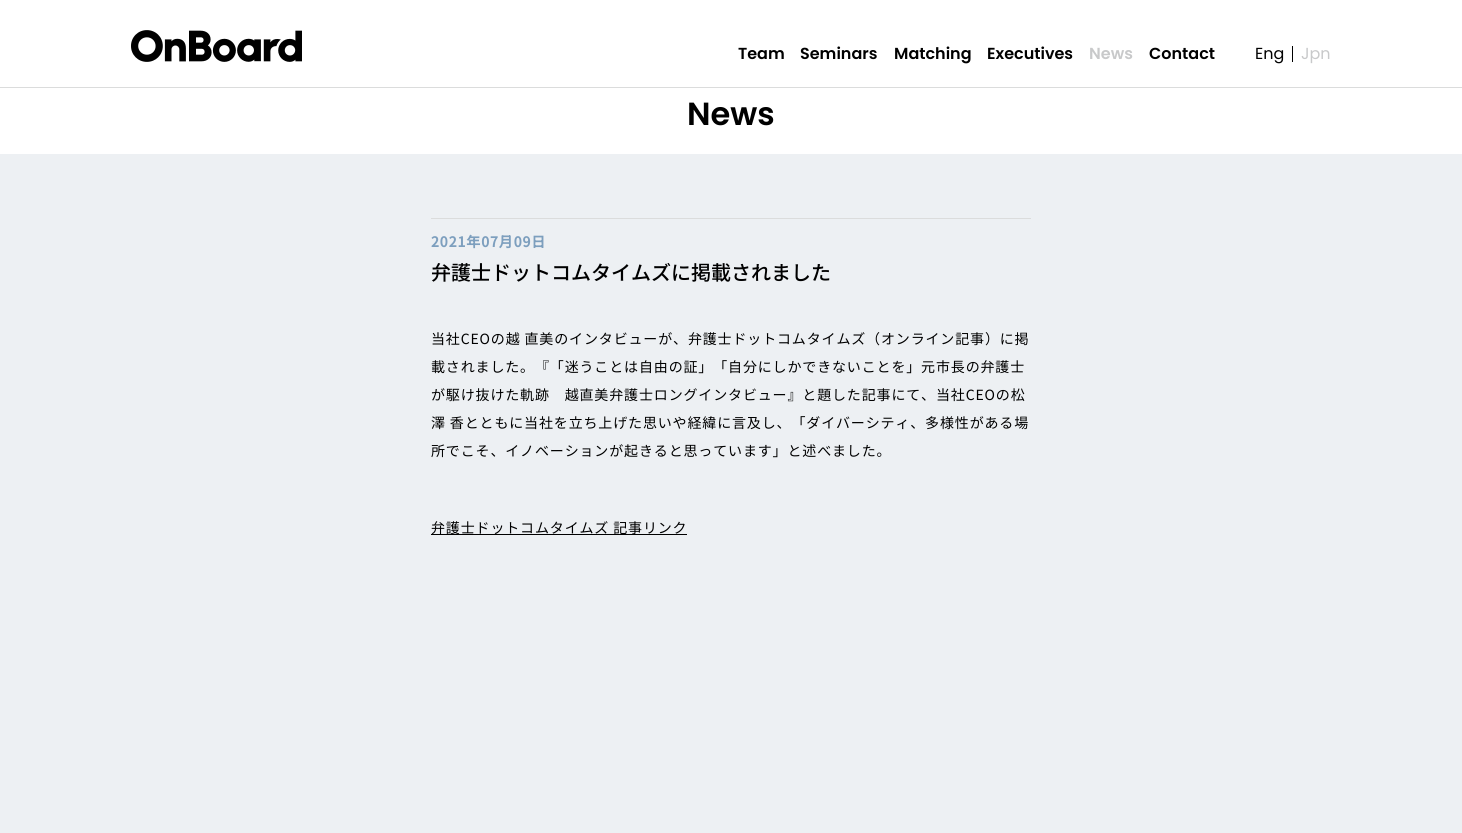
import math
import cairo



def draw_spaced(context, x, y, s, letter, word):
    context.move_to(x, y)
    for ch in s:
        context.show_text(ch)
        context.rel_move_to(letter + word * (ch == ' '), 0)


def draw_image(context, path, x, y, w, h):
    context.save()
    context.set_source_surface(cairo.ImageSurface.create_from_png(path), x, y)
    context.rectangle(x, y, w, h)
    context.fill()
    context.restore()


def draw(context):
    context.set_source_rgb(1, 1, 1)
    context.paint()
    context.set_source_rgb(219 / 255, 220 / 255, 220 / 255)
    context.rectangle(0, 87, 1462, 1)
    context.fill()
    draw_image(context, "images/1.png", 131, 30, 171, 32)
    context.set_source_rgb(0, 0, 0)
    context.rectangle(1292, 46, 1, 16)
    context.fill()
    context.set_source_rgb(237 / 255, 240 / 255, 243 / 255)
    context.rectangle(0, 154, 1462, 679)
    context.fill()
    context.set_source_rgb(219 / 255, 220 / 255, 220 / 255)
    context.rectangle(431, 218, 600, 1)
    context.fill()
    context.set_source_rgb(0, 0, 0)
    context.rectangle(431, 534, 256, 1)
    context.fill()
    context.select_font_face("Poppins SemiBold")
    context.set_font_size(16)
    context.move_to(738, 59)
    context.show_text("Team")
    context.move_to(800, 59)
    context.show_text("Seminars")
    context.move_to(894, 59)
    context.show_text("Matching")
    context.move_to(987, 59)
    context.show_text("Executives")
    context.set_source_rgb(200 / 255, 201 / 255, 202 / 255)
    context.move_to(1089, 59)
    context.show_text("News")
    context.set_source_rgb(0, 0, 0)
    context.move_to(1149, 59)
    context.show_text("Contact")
    context.select_font_face("Poppins")
    context.move_to(1255, 59)
    context.show_text("Eng")
    context.set_source_rgb(200 / 255, 201 / 255, 202 / 255)
    context.move_to(1301, 59)
    context.show_text("Jpn")
    context.select_font_face("Poppins SemiBold")
    context.set_font_size(32)
    context.set_source_rgb(0, 0, 0)
    context.move_to(687, 125)
    context.show_text("News")
    context.select_font_face("Noto Sans JP", cairo.FontSlant.NORMAL, cairo.FontWeight.BOLD)
    context.set_font_size(14)
    context.set_source_rgb(125 / 255, 159 / 255, 190 / 255)
    draw_spaced(context, 431, 247, "2021年07月09日", 0.85, 0)
    context.select_font_face("Noto Sans JP Medium")
    context.set_font_size(20)
    context.set_source_rgb(0, 0, 0)
    context.move_to(431, 280)
    context.show_text("弁護士ドットコムタイムズに掲載されました")
    context.select_font_face("Noto Sans JP")
    context.set_font_size(14)
    draw_spaced(context, 431, 344, "当社CEOの越 直美のインタビューが、弁護士ドットコムタイムズ（オンライン記事）に掲", 0.85, 0)
    draw_spaced(context, 431, 372, "載されました。『「迷うことは自由の証」「自分にしかできないことを」元市長の弁護士", 0.85, 0)
    draw_spaced(context, 431, 400, "が駆け抜けた軌跡　越直美弁護士ロングインタビュー』と題した記事にて、当社CEOの松", 0.85, 0)
    draw_spaced(context, 431, 428, "澤 香とともに当社を立ち上げた思いや経緯に言及し、「ダイバーシティ、多様性がある場", 0.85, 0)
    draw_spaced(context, 431, 456, "所でこそ、イノベーションが起きると思っています」と述べました。", 0.85, 0)
    draw_spaced(context, 431, 533, "弁護士ドットコムタイムズ 記事リンク", 0.85, 0)


surface = cairo.ImageSurface(cairo.Format.RGB24, 1462, 833)
context = cairo.Context(surface)
options = cairo.FontOptions()
options.set_hint_metrics(cairo.HintMetrics.OFF)
options.set_hint_style(cairo.HintStyle.NONE)
context.set_font_options(options)
context.set_miter_limit(4)
draw(context)
surface.write_to_png("out.png")
